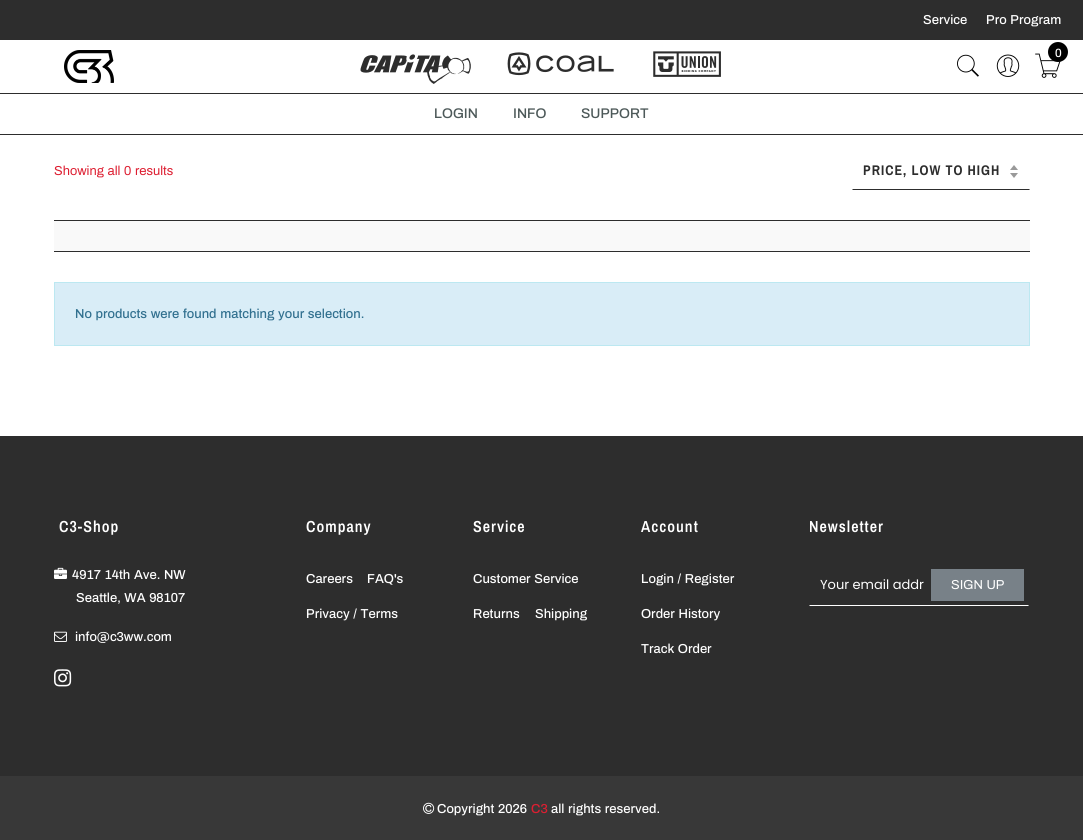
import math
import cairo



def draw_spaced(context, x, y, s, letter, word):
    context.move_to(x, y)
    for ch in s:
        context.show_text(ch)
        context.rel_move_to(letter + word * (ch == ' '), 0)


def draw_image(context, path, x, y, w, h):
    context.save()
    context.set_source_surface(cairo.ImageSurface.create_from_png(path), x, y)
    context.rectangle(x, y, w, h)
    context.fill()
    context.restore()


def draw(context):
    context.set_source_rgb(1, 1, 1)
    context.paint()
    context.set_source_rgb(56 / 255, 56 / 255, 56 / 255)
    context.rectangle(0, 776, 1083, 64)
    context.fill()
    context.set_source_rgb(45 / 255, 45 / 255, 45 / 255)
    context.rectangle(0, 0, 1083, 40)
    context.fill()
    draw_image(context, "images/1.png", 64, 50, 50, 33)
    draw_image(context, "images/2.png", 360, 54, 111, 30)
    draw_image(context, "images/3.png", 507, 52, 107, 24)
    draw_image(context, "images/4.png", 653, 51, 68, 26)
    draw_image(context, "images/5.png", 1035, 53, 26, 25)
    context.set_source_rgb(0, 0, 0)
    context.arc(1058, 52, 10, 0, 2 * math.pi)
    context.fill()
    draw_image(context, "images/6.png", 957, 54, 22, 23)
    draw_image(context, "images/7.png", 996, 54, 24, 23)
    context.set_source_rgb(45 / 255, 45 / 255, 45 / 255)
    context.rectangle(0, 93, 1083, 1)
    context.fill()
    context.rectangle(0, 134, 1083, 1)
    context.fill()
    draw_image(context, "images/8.png", 1010, 165, 8, 13)
    context.new_path()
    context.move_to(1030, 190)
    context.line_to(852, 190)
    context.line_to(853, 189)
    context.line_to(1029, 189)
    context.close_path()
    context.fill()
    context.set_source_rgb(249 / 255, 249 / 255, 249 / 255)
    context.rectangle(54, 221, 976, 30)
    context.fill()
    context.set_source_rgb(45 / 255, 45 / 255, 45 / 255)
    context.rectangle(54, 220, 976, 1)
    context.fill()
    context.rectangle(54, 251, 976, 1)
    context.fill()
    context.set_source_rgb(217 / 255, 237 / 255, 247 / 255)
    context.rectangle(54.5, 282.5, 975, 63)
    context.fill_preserve()
    context.set_source_rgb(188 / 255, 232 / 255, 241 / 255)
    context.set_line_width(1)
    context.stroke()
    context.set_source_rgb(45 / 255, 45 / 255, 45 / 255)
    context.rectangle(0, 436, 1083, 340)
    context.fill()
    draw_image(context, "images/9.png", 54, 567, 13, 12)
    draw_image(context, "images/10.png", 54, 631, 13, 11)
    draw_image(context, "images/11.png", 54, 669, 18, 18)
    context.set_source_rgb(1, 1, 1)
    context.new_path()
    context.move_to(1029, 606)
    context.line_to(809, 606)
    context.line_to(810, 605)
    context.line_to(1028, 605)
    context.close_path()
    context.fill()
    context.set_source_rgb(120 / 255, 129 / 255, 136 / 255)
    context.rectangle(931, 569, 93, 32)
    context.fill()
    draw_image(context, "images/12.png", 423, 802, 12, 12)
    context.select_font_face("Archivo Medium")
    context.set_font_size(13)
    context.set_source_rgb(1, 1, 1)
    context.move_to(923, 24)
    context.show_text("Service")
    context.move_to(986, 24)
    context.show_text("Pro Program")
    context.set_font_size(12)
    context.move_to(1055, 57)
    context.show_text("0")
    context.set_font_size(14)
    context.set_source_rgb(77 / 255, 89 / 255, 89 / 255)
    context.move_to(434, 118)
    context.show_text("LOGIN")
    context.move_to(513, 118)
    context.show_text("INFO")
    context.move_to(581, 118)
    context.show_text("SUPPORT")
    context.select_font_face("Archivo")
    context.set_font_size(13)
    context.set_source_rgb(221 / 255, 30 / 255, 49 / 255)
    context.move_to(54, 175)
    context.show_text("Showing all 0 results")
    context.select_font_face("Archivo Narrow", cairo.FontSlant.NORMAL, cairo.FontWeight.BOLD)
    context.set_font_size(14)
    context.set_source_rgb(45 / 255, 45 / 255, 45 / 255)
    draw_spaced(context, 863, 175, "PRICE, LOW TO HIGH", 1, 0)
    context.select_font_face("Archivo Medium")
    context.set_font_size(13)
    context.set_source_rgb(49 / 255, 112 / 255, 143 / 255)
    context.move_to(75, 318)
    context.show_text("No products were found matching your selection.")
    context.select_font_face("Archivo Narrow SemiBold")
    context.set_font_size(16)
    context.set_source_rgb(1, 1, 1)
    draw_spaced(context, 59, 532, "C3-Shop", 1, 0)
    context.select_font_face("Archivo Medium")
    context.set_font_size(13)
    context.move_to(72, 579)
    context.show_text("4917 14th Ave. NW")
    context.move_to(76, 602)
    context.show_text("Seattle, WA 98107")
    context.move_to(75, 641)
    context.show_text("info@c3ww.com")
    context.select_font_face("Archivo Narrow SemiBold")
    context.set_font_size(16)
    draw_spaced(context, 306, 532, "Company", 1, 0)
    context.select_font_face("Archivo Medium")
    context.set_font_size(13)
    context.move_to(306, 583)
    context.show_text("Careers")
    context.move_to(367, 583)
    context.show_text("FAQ's")
    context.move_to(306, 618)
    context.show_text("Privacy / Terms")
    context.select_font_face("Archivo Narrow SemiBold")
    context.set_font_size(16)
    draw_spaced(context, 473, 532, "Service", 1, 0)
    context.select_font_face("Archivo Medium")
    context.set_font_size(13)
    context.move_to(473, 583)
    context.show_text("Customer Service")
    context.move_to(473, 618)
    context.show_text("Returns")
    context.move_to(535, 618)
    context.show_text("Shipping")
    context.select_font_face("Archivo Narrow SemiBold")
    context.set_font_size(16)
    draw_spaced(context, 641, 532, "Account", 1, 0)
    context.select_font_face("Archivo Medium")
    context.set_font_size(13)
    context.move_to(641, 583)
    context.show_text("Login / Register")
    context.move_to(641, 618)
    context.show_text("Order History")
    context.move_to(641, 653)
    context.show_text("Track Order")
    context.select_font_face("Archivo Narrow SemiBold")
    context.set_font_size(16)
    draw_spaced(context, 809, 532, "Newsletter", 1, 0)
    context.select_font_face("Poppins")
    context.set_font_size(13)
    context.move_to(820, 589)
    context.show_text("Your email addr")
    context.select_font_face("Archivo")
    context.move_to(951, 589)
    context.show_text("SIGN UP")
    context.select_font_face("Archivo Medium")
    context.move_to(437, 813)
    context.show_text("Copyright 2026")
    context.set_source_rgb(221 / 255, 30 / 255, 49 / 255)
    context.move_to(531, 813)
    context.show_text("C3")
    context.set_source_rgb(1, 1, 1)
    context.move_to(551, 813)
    context.show_text("all rights reserved.")


surface = cairo.ImageSurface(cairo.Format.RGB24, 1083, 840)
context = cairo.Context(surface)
options = cairo.FontOptions()
options.set_hint_metrics(cairo.HintMetrics.OFF)
options.set_hint_style(cairo.HintStyle.NONE)
context.set_font_options(options)
context.set_miter_limit(4)
draw(context)
surface.write_to_png("out.png")
